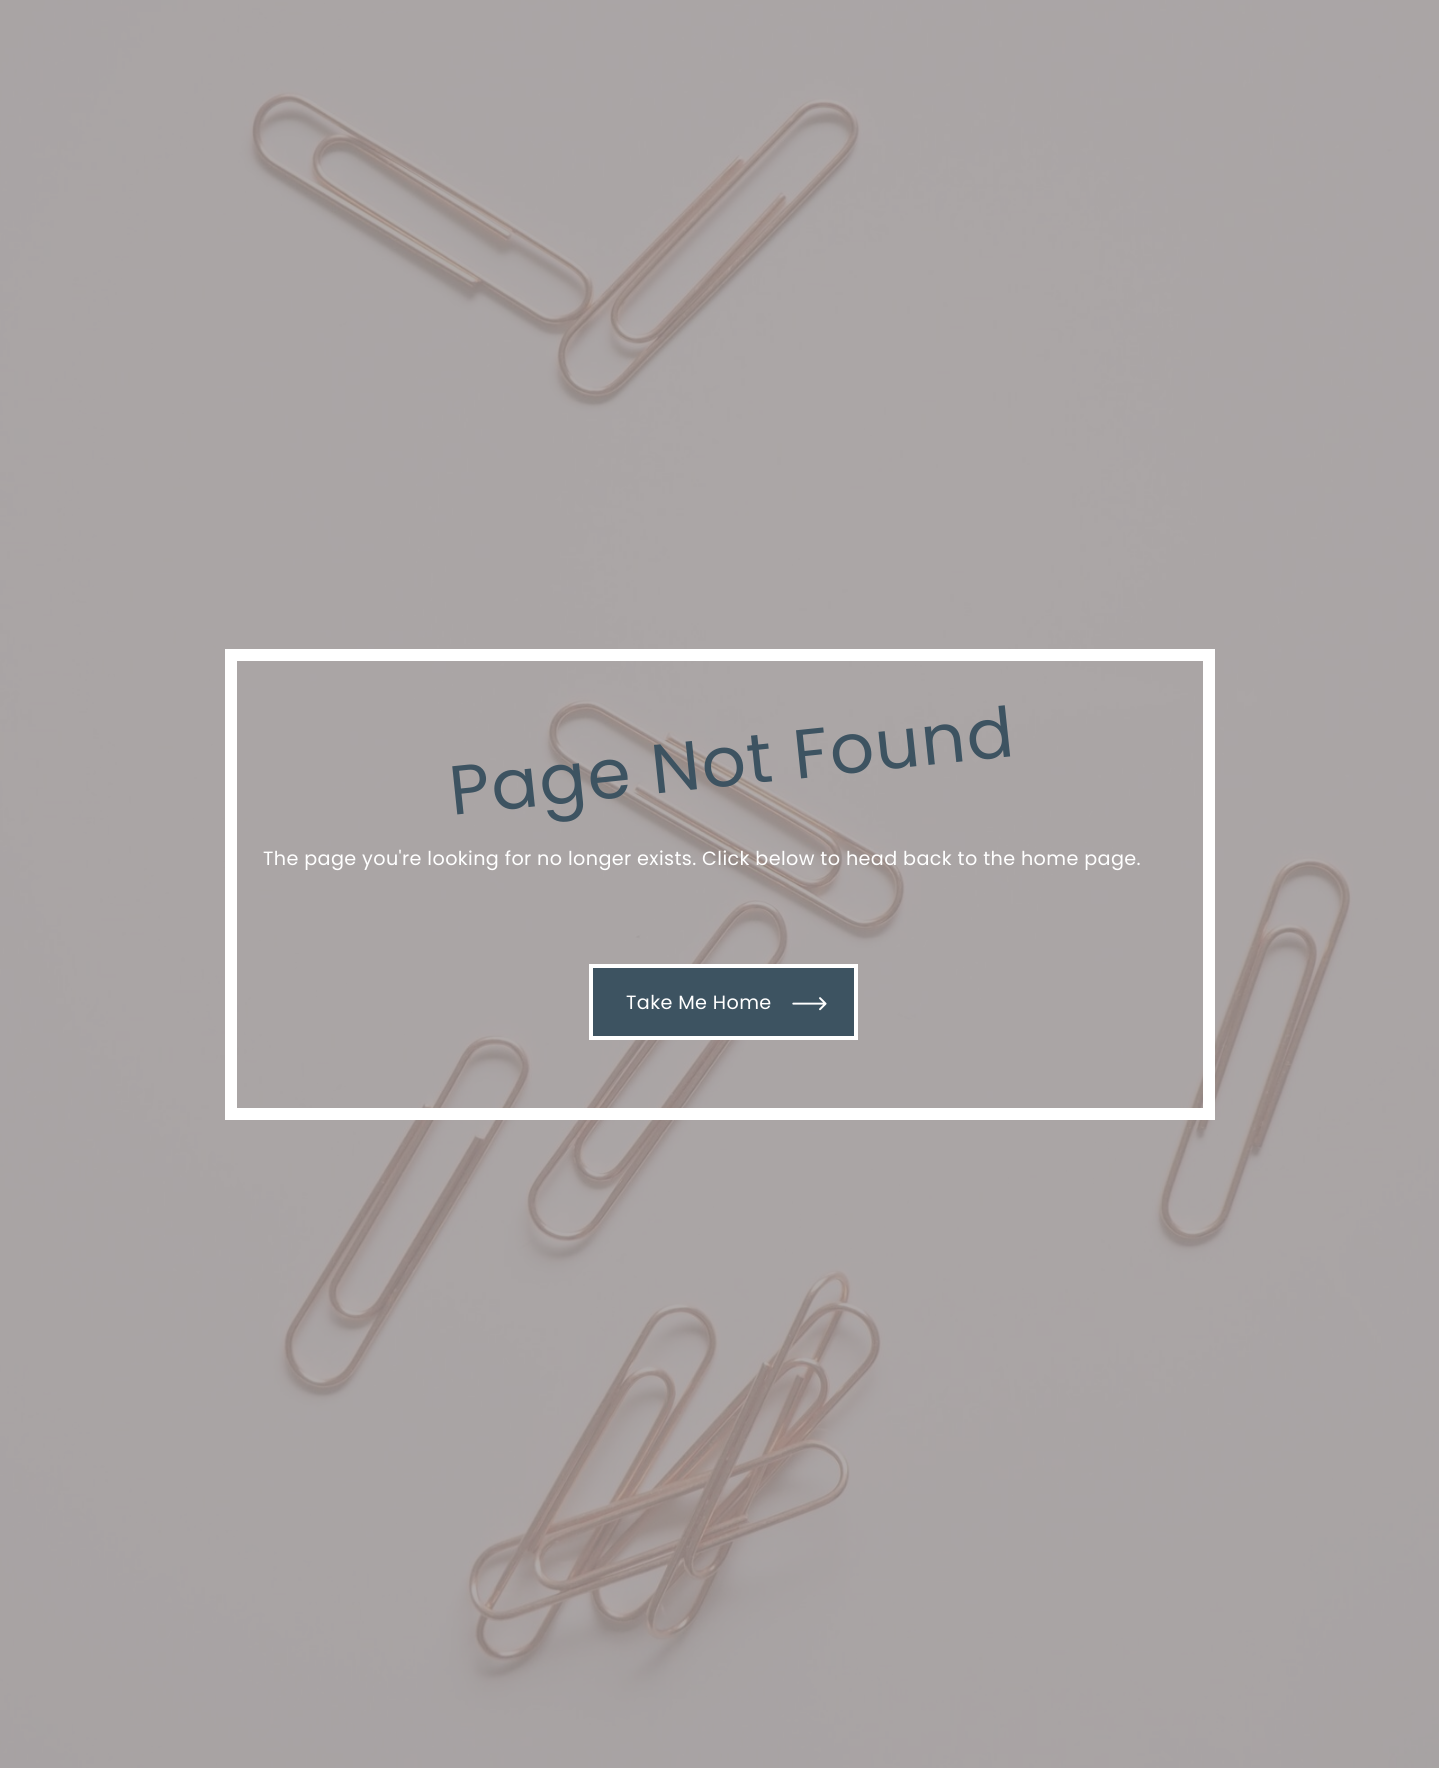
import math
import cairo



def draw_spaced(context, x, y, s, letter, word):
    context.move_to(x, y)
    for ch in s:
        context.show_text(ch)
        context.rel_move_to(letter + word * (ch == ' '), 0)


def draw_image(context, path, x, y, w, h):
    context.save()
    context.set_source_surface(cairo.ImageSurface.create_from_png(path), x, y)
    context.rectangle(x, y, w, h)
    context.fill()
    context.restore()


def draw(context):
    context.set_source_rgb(156 / 255, 150 / 255, 150 / 255)
    context.paint()
    draw_image(context, "images/1.png", 0, 0, 1439, 1768)
    context.rectangle(231, 655, 978, 459)
    context.set_source_rgb(1, 1, 1)
    context.set_line_width(12)
    context.stroke()
    context.set_source_rgb(61 / 255, 83 / 255, 97 / 255)
    context.rectangle(591, 966, 265, 72)
    context.fill_preserve()
    context.set_source_rgb(1, 1, 1)
    context.set_line_width(4)
    context.stroke()
    draw_image(context, "images/2.png", 792, 997, 35, 14)
    context.select_font_face("Poppins")
    context.set_font_size(69.5)
    context.set_source_rgb(61 / 255, 83 / 255, 97 / 255)
    context.save()
    context.translate(452, 815)
    context.rotate(-6 * math.pi / 180)
    draw_spaced(context, 0, 0, "Page Not Found", 1.4, 0)
    context.restore()
    context.set_font_size(19.2)
    context.set_source_rgb(1, 1, 1)
    draw_spaced(context, 263, 865, "The page you're looking for no longer exists. Click below to head back to the home page.", 0.38, 0)
    draw_spaced(context, 626, 1009, "Take Me Home", 0.38, 0)


surface = cairo.ImageSurface(cairo.Format.RGB24, 1439, 1768)
context = cairo.Context(surface)
options = cairo.FontOptions()
options.set_hint_metrics(cairo.HintMetrics.OFF)
options.set_hint_style(cairo.HintStyle.NONE)
context.set_font_options(options)
context.set_miter_limit(4)
draw(context)
surface.write_to_png("out.png")
